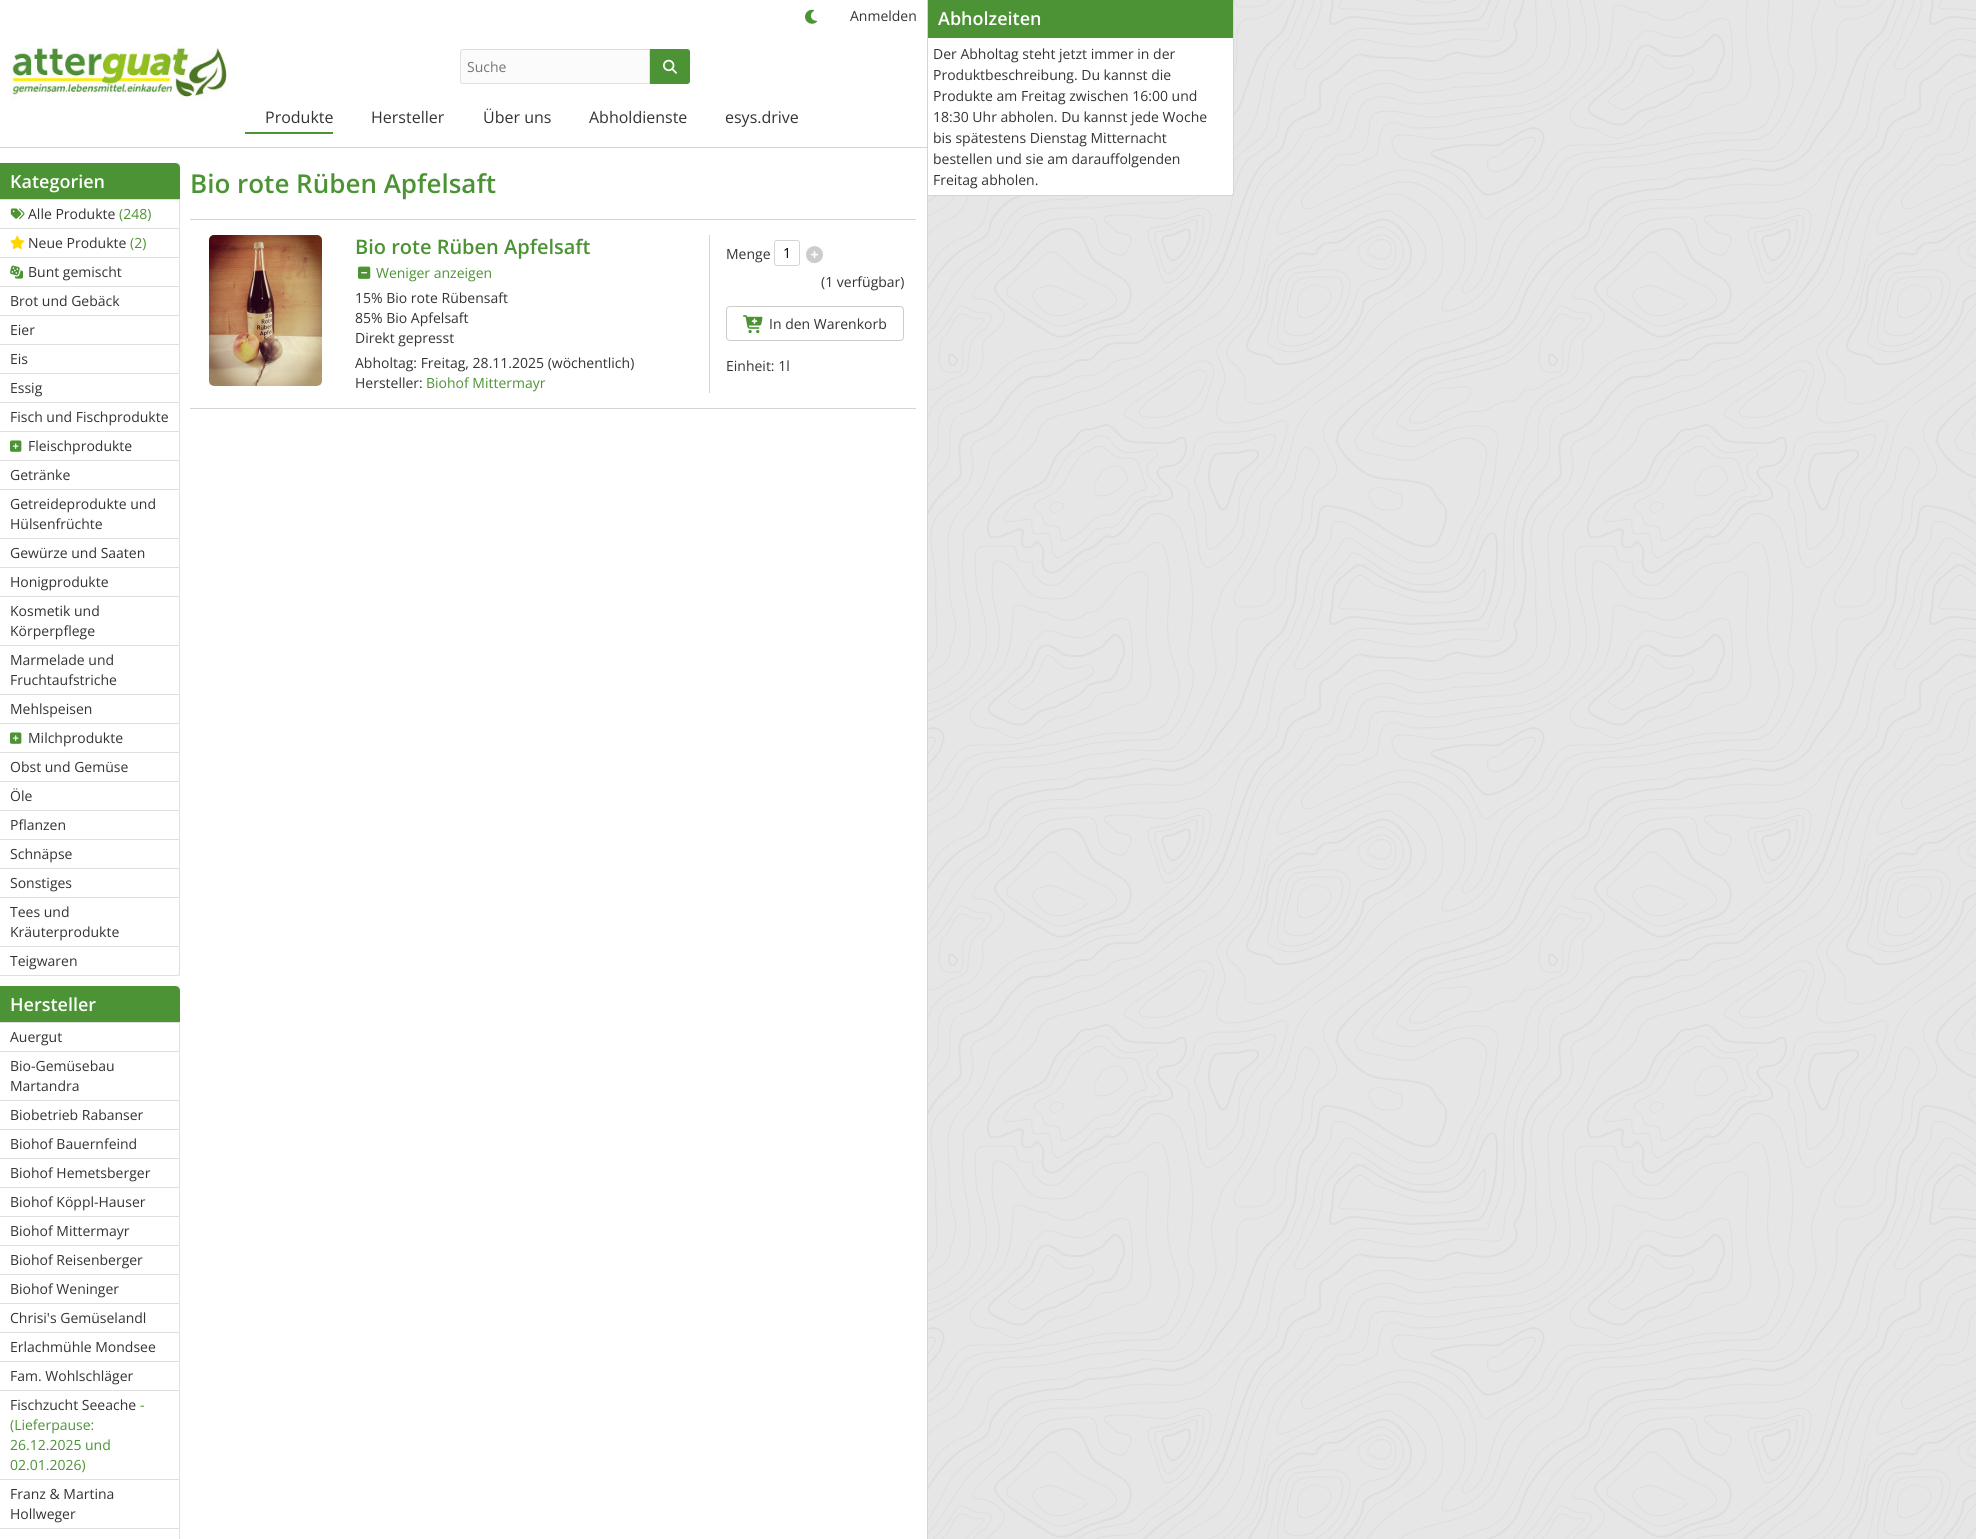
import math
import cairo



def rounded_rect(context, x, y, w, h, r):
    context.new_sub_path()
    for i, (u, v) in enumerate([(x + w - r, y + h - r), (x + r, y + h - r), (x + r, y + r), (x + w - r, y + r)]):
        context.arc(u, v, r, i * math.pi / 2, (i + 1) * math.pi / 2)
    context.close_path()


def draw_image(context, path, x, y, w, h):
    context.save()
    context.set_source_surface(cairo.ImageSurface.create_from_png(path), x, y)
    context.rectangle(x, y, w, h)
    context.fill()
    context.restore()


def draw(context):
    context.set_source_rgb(230 / 255, 230 / 255, 230 / 255)
    context.paint()
    draw_image(context, "images/1.png", 928, 0, 1048, 1539)
    context.set_source_rgb(1, 1, 1)
    context.rectangle(0, 0, 927, 147)
    context.fill()
    context.set_source_rgb(214 / 255, 212 / 255, 212 / 255)
    context.rectangle(927, 0, 1, 1539)
    context.fill()
    context.rectangle(0, 147, 928, 1)
    context.fill()
    draw_image(context, "images/2.png", 805, 9, 12, 15)
    draw_image(context, "images/3.png", 10, 45, 217, 55)
    context.set_source_rgb(251 / 255, 251 / 255, 251 / 255)
    context.new_path()
    context.move_to(463, 49.5)
    context.line_to(649.5, 49.5)
    context.line_to(649.5, 83.5)
    context.line_to(463, 83.5)
    context.curve_to(461.5, 83.5, 460.5, 82.5, 460.5, 81)
    context.line_to(460.5, 52)
    context.curve_to(460.5, 50.5, 461.5, 49.5, 463, 49.5)
    context.close_path()
    context.fill_preserve()
    context.set_source_rgb(223 / 255, 223 / 255, 223 / 255)
    context.set_line_width(1)
    context.stroke()
    context.set_source_rgb(76 / 255, 147 / 255, 53 / 255)
    context.new_path()
    context.move_to(650.5, 49.5)
    context.line_to(687, 49.5)
    context.curve_to(688.5, 49.5, 689.5, 50.5, 689.5, 52)
    context.line_to(689.5, 81)
    context.curve_to(689.5, 82.5, 688.5, 83.5, 687, 83.5)
    context.line_to(650.5, 83.5)
    context.close_path()
    context.fill_preserve()
    context.stroke()
    draw_image(context, "images/4.png", 663, 59, 14, 15)
    context.rectangle(245, 132, 88, 2)
    context.fill()
    context.set_source_rgb(1, 1, 1)
    context.new_path()
    context.move_to(928, 0)
    context.line_to(1234, 0)
    context.line_to(1234, 193)
    context.curve_to(1234, 194.5, 1232.5, 196, 1231, 196)
    context.line_to(928, 196)
    context.close_path()
    context.fill()
    context.set_source_rgb(214 / 255, 212 / 255, 212 / 255)
    context.set_fill_rule(cairo.FillRule.EVEN_ODD)
    context.new_path()
    context.move_to(928, 0)
    context.line_to(1234, 0)
    context.line_to(1234, 193)
    context.curve_to(1234, 195, 1233, 196, 1231, 196)
    context.line_to(928, 196)
    context.close_path()
    context.move_to(928, 0)
    context.line_to(1233, 0)
    context.line_to(1233, 193)
    context.curve_to(1233, 194, 1232, 195, 1231, 195)
    context.line_to(928, 195)
    context.close_path()
    context.fill()
    context.set_source_rgb(76 / 255, 147 / 255, 53 / 255)
    context.rectangle(928, 0, 305, 38)
    context.fill()
    context.set_source_rgb(1, 1, 1)
    context.rectangle(0, 148, 927, 1391)
    context.fill()
    context.set_source_rgb(239 / 255, 239 / 255, 239 / 255)
    context.rectangle(175, 163, 5, 813)
    context.fill()
    context.set_source_rgb(76 / 255, 147 / 255, 53 / 255)
    context.new_path()
    context.move_to(0, 163)
    context.line_to(175, 163)
    context.curve_to(178, 163, 180, 165, 180, 168)
    context.line_to(180, 200)
    context.line_to(0, 200)
    context.close_path()
    context.fill()
    context.set_source_rgb(223 / 255, 223 / 255, 223 / 255)
    context.rectangle(0, 199, 180, 1)
    context.fill()
    context.set_source_rgb(1, 1, 1)
    context.rectangle(175, 200, 4, 28)
    context.fill()
    context.set_source_rgb(223 / 255, 223 / 255, 223 / 255)
    context.rectangle(179, 200, 1, 747)
    context.fill()
    context.rectangle(0, 228, 180, 1)
    context.fill()
    draw_image(context, "images/5.png", 10, 208, 15, 12)
    context.set_source_rgb(1, 1, 1)
    context.rectangle(175, 229, 4, 28)
    context.fill()
    context.set_source_rgb(223 / 255, 223 / 255, 223 / 255)
    context.rectangle(0, 257, 180, 1)
    context.fill()
    draw_image(context, "images/6.png", 10, 235, 15, 15)
    context.set_source_rgb(1, 1, 1)
    context.rectangle(175, 258, 4, 28)
    context.fill()
    context.set_source_rgb(223 / 255, 223 / 255, 223 / 255)
    context.rectangle(0, 286, 180, 1)
    context.fill()
    draw_image(context, "images/7.png", 10, 265, 13, 14)
    context.set_source_rgb(1, 1, 1)
    context.rectangle(175, 287, 4, 28)
    context.fill()
    context.set_source_rgb(223 / 255, 223 / 255, 223 / 255)
    context.rectangle(0, 315, 180, 1)
    context.fill()
    context.set_source_rgb(1, 1, 1)
    context.rectangle(175, 316, 4, 28)
    context.fill()
    context.set_source_rgb(223 / 255, 223 / 255, 223 / 255)
    context.rectangle(0, 344, 180, 1)
    context.fill()
    context.set_source_rgb(1, 1, 1)
    context.rectangle(175, 345, 4, 28)
    context.fill()
    context.set_source_rgb(223 / 255, 223 / 255, 223 / 255)
    context.rectangle(0, 373, 180, 1)
    context.fill()
    context.set_source_rgb(1, 1, 1)
    context.rectangle(175, 374, 4, 28)
    context.fill()
    context.set_source_rgb(223 / 255, 223 / 255, 223 / 255)
    context.rectangle(0, 402, 180, 1)
    context.fill()
    context.set_source_rgb(1, 1, 1)
    context.rectangle(175, 403, 4, 28)
    context.fill()
    context.set_source_rgb(223 / 255, 223 / 255, 223 / 255)
    context.rectangle(0, 431, 180, 1)
    context.fill()
    context.set_source_rgb(1, 1, 1)
    context.rectangle(175, 432, 4, 28)
    context.fill()
    context.set_source_rgb(223 / 255, 223 / 255, 223 / 255)
    context.rectangle(0, 460, 180, 1)
    context.fill()
    draw_image(context, "images/8.png", 10, 440, 12, 12)
    context.set_source_rgb(1, 1, 1)
    context.rectangle(175, 461, 4, 28)
    context.fill()
    context.set_source_rgb(223 / 255, 223 / 255, 223 / 255)
    context.rectangle(0, 489, 180, 1)
    context.fill()
    context.set_source_rgb(1, 1, 1)
    context.rectangle(175, 490, 4, 48)
    context.fill()
    context.set_source_rgb(223 / 255, 223 / 255, 223 / 255)
    context.rectangle(0, 538, 180, 1)
    context.fill()
    context.set_source_rgb(1, 1, 1)
    context.rectangle(175, 539, 4, 28)
    context.fill()
    context.set_source_rgb(223 / 255, 223 / 255, 223 / 255)
    context.rectangle(0, 567, 180, 1)
    context.fill()
    context.set_source_rgb(1, 1, 1)
    context.rectangle(175, 568, 4, 28)
    context.fill()
    context.set_source_rgb(223 / 255, 223 / 255, 223 / 255)
    context.rectangle(0, 596, 180, 1)
    context.fill()
    context.set_source_rgb(1, 1, 1)
    context.rectangle(175, 597, 4, 48)
    context.fill()
    context.set_source_rgb(223 / 255, 223 / 255, 223 / 255)
    context.rectangle(0, 645, 180, 1)
    context.fill()
    context.set_source_rgb(1, 1, 1)
    context.rectangle(175, 646, 4, 48)
    context.fill()
    context.set_source_rgb(223 / 255, 223 / 255, 223 / 255)
    context.rectangle(0, 694, 180, 1)
    context.fill()
    context.set_source_rgb(1, 1, 1)
    context.rectangle(175, 695, 4, 28)
    context.fill()
    context.set_source_rgb(223 / 255, 223 / 255, 223 / 255)
    context.rectangle(0, 723, 180, 1)
    context.fill()
    context.set_source_rgb(1, 1, 1)
    context.rectangle(175, 724, 4, 28)
    context.fill()
    context.set_source_rgb(223 / 255, 223 / 255, 223 / 255)
    context.rectangle(0, 752, 180, 1)
    context.fill()
    draw_image(context, "images/8.png", 10, 732, 12, 12)
    context.set_source_rgb(1, 1, 1)
    context.rectangle(175, 753, 4, 28)
    context.fill()
    context.set_source_rgb(223 / 255, 223 / 255, 223 / 255)
    context.rectangle(0, 781, 180, 1)
    context.fill()
    context.set_source_rgb(1, 1, 1)
    context.rectangle(175, 782, 4, 28)
    context.fill()
    context.set_source_rgb(223 / 255, 223 / 255, 223 / 255)
    context.rectangle(0, 810, 180, 1)
    context.fill()
    context.set_source_rgb(1, 1, 1)
    context.rectangle(175, 811, 4, 28)
    context.fill()
    context.set_source_rgb(223 / 255, 223 / 255, 223 / 255)
    context.rectangle(0, 839, 180, 1)
    context.fill()
    context.set_source_rgb(1, 1, 1)
    context.rectangle(175, 840, 4, 28)
    context.fill()
    context.set_source_rgb(223 / 255, 223 / 255, 223 / 255)
    context.rectangle(0, 868, 180, 1)
    context.fill()
    context.set_source_rgb(1, 1, 1)
    context.rectangle(175, 869, 4, 28)
    context.fill()
    context.set_source_rgb(223 / 255, 223 / 255, 223 / 255)
    context.rectangle(0, 897, 180, 1)
    context.fill()
    context.set_source_rgb(1, 1, 1)
    context.rectangle(175, 898, 4, 48)
    context.fill()
    context.set_source_rgb(223 / 255, 223 / 255, 223 / 255)
    context.rectangle(0, 946, 180, 1)
    context.fill()
    context.set_source_rgb(1, 1, 1)
    context.new_path()
    context.move_to(0, 947)
    context.line_to(180, 947)
    context.line_to(180, 973)
    context.curve_to(180, 974.5, 178.5, 976, 177, 976)
    context.line_to(0, 976)
    context.close_path()
    context.fill()
    context.set_source_rgb(223 / 255, 223 / 255, 223 / 255)
    context.new_path()
    context.move_to(0, 947)
    context.line_to(180, 947)
    context.line_to(180, 973)
    context.curve_to(180, 975, 179, 976, 177, 976)
    context.line_to(0, 976)
    context.close_path()
    context.move_to(0, 947)
    context.line_to(179, 947)
    context.line_to(179, 973)
    context.curve_to(179, 974, 178, 975, 177, 975)
    context.line_to(0, 975)
    context.close_path()
    context.fill()
    context.set_source_rgb(239 / 255, 239 / 255, 239 / 255)
    context.rectangle(175, 986, 5, 5)
    context.fill()
    context.set_source_rgb(76 / 255, 147 / 255, 53 / 255)
    context.new_path()
    context.move_to(0, 986)
    context.line_to(175, 986)
    context.curve_to(178, 986, 180, 988, 180, 991)
    context.line_to(180, 1023)
    context.line_to(0, 1023)
    context.close_path()
    context.fill()
    context.set_source_rgb(223 / 255, 223 / 255, 223 / 255)
    context.rectangle(0, 1022, 180, 1)
    context.fill()
    context.rectangle(179, 1023, 1, 516)
    context.fill()
    context.rectangle(0, 1051, 180, 1)
    context.fill()
    context.rectangle(0, 1100, 180, 1)
    context.fill()
    context.rectangle(0, 1129, 180, 1)
    context.fill()
    context.rectangle(0, 1158, 180, 1)
    context.fill()
    context.rectangle(0, 1187, 180, 1)
    context.fill()
    context.rectangle(0, 1216, 180, 1)
    context.fill()
    context.rectangle(0, 1245, 180, 1)
    context.fill()
    context.rectangle(0, 1274, 180, 1)
    context.fill()
    context.rectangle(0, 1303, 180, 1)
    context.fill()
    context.rectangle(0, 1332, 180, 1)
    context.fill()
    context.rectangle(0, 1361, 180, 1)
    context.fill()
    context.rectangle(0, 1390, 180, 1)
    context.fill()
    context.rectangle(0, 1479, 180, 1)
    context.fill()
    context.rectangle(0, 1528, 180, 1)
    context.fill()
    context.set_source_rgb(214 / 255, 212 / 255, 212 / 255)
    context.rectangle(190, 219, 726, 1)
    context.fill()
    context.rectangle(190, 408, 726, 1)
    context.fill()
    draw_image(context, "images/9.png", 209, 235, 113, 151)
    context.rectangle(709, 235, 1, 158)
    context.fill()
    draw_image(context, "images/10.png", 358, 266, 13, 13)
    rounded_rect(context, 774.5, 240.5, 25, 25, 2.5)
    context.stroke()
    draw_image(context, "images/11.png", 806, 246, 17, 18)
    rounded_rect(context, 726.5, 306.5, 177, 34, 3.5)
    context.set_source_rgb(204 / 255, 204 / 255, 204 / 255)
    context.stroke()
    draw_image(context, "images/12.png", 743, 315, 20, 19)
    context.select_font_face("Open Sans")
    context.set_font_size(14)
    context.set_source_rgb(51 / 255, 51 / 255, 51 / 255)
    context.move_to(850, 21)
    context.show_text("Anmelden")
    context.set_source_rgb(117 / 255, 117 / 255, 117 / 255)
    context.move_to(467, 72)
    context.show_text("Suche")
    context.set_font_size(16)
    context.set_source_rgb(51 / 255, 51 / 255, 51 / 255)
    context.move_to(265, 123)
    context.show_text("Produkte")
    context.move_to(371, 123)
    context.show_text("Hersteller")
    context.move_to(483, 123)
    context.show_text("Über uns")
    context.move_to(589, 123)
    context.show_text("Abholdienste")
    context.move_to(725, 123)
    context.show_text("esys.drive")
    context.select_font_face("Open Sans SemiBold")
    context.set_font_size(18)
    context.set_source_rgb(1, 1, 1)
    context.move_to(938, 25)
    context.show_text("Abholzeiten")
    context.select_font_face("Open Sans")
    context.set_font_size(14)
    context.set_source_rgb(51 / 255, 51 / 255, 51 / 255)
    context.move_to(933, 59)
    context.show_text("Der Abholtag steht jetzt immer in der")
    context.move_to(933, 80)
    context.show_text("Produktbeschreibung. Du kannst die")
    context.move_to(933, 101)
    context.show_text("Produkte am Freitag zwischen 16:00 und")
    context.move_to(933, 122)
    context.show_text("18:30 Uhr abholen. Du kannst jede Woche")
    context.move_to(933, 143)
    context.show_text("bis spätestens Dienstag Mitternacht")
    context.move_to(933, 164)
    context.show_text("bestellen und sie am darauffolgenden")
    context.move_to(933, 185)
    context.show_text("Freitag abholen.")
    context.select_font_face("Open Sans SemiBold")
    context.set_font_size(18)
    context.set_source_rgb(1, 1, 1)
    context.move_to(10, 188)
    context.show_text("Kategorien")
    context.select_font_face("Open Sans")
    context.set_font_size(14)
    context.set_source_rgb(51 / 255, 51 / 255, 51 / 255)
    context.move_to(28, 219)
    context.show_text("Alle Produkte")
    context.set_source_rgb(76 / 255, 147 / 255, 53 / 255)
    context.move_to(119, 219)
    context.show_text("(248)")
    context.set_source_rgb(51 / 255, 51 / 255, 51 / 255)
    context.move_to(28, 248)
    context.show_text("Neue Produkte")
    context.set_source_rgb(76 / 255, 147 / 255, 53 / 255)
    context.move_to(130, 248)
    context.show_text("(2)")
    context.set_source_rgb(51 / 255, 51 / 255, 51 / 255)
    context.move_to(28, 277)
    context.show_text("Bunt gemischt")
    context.move_to(10, 306)
    context.show_text("Brot und Gebäck")
    context.move_to(10, 335)
    context.show_text("Eier")
    context.move_to(10, 364)
    context.show_text("Eis")
    context.move_to(10, 393)
    context.show_text("Essig")
    context.move_to(10, 422)
    context.show_text("Fisch und Fischprodukte")
    context.move_to(28, 451)
    context.show_text("Fleischprodukte")
    context.move_to(10, 480)
    context.show_text("Getränke")
    context.move_to(10, 509)
    context.show_text("Getreideprodukte und")
    context.move_to(10, 529)
    context.show_text("Hülsenfrüchte")
    context.move_to(10, 558)
    context.show_text("Gewürze und Saaten")
    context.move_to(10, 587)
    context.show_text("Honigprodukte")
    context.move_to(10, 616)
    context.show_text("Kosmetik und")
    context.move_to(10, 636)
    context.show_text("Körperpflege")
    context.move_to(10, 665)
    context.show_text("Marmelade und")
    context.move_to(10, 685)
    context.show_text("Fruchtaufstriche")
    context.move_to(10, 714)
    context.show_text("Mehlspeisen")
    context.move_to(28, 743)
    context.show_text("Milchprodukte")
    context.move_to(10, 772)
    context.show_text("Obst und Gemüse")
    context.move_to(10, 801)
    context.show_text("Öle")
    context.move_to(10, 830)
    context.show_text("Pflanzen")
    context.move_to(10, 859)
    context.show_text("Schnäpse")
    context.move_to(10, 888)
    context.show_text("Sonstiges")
    context.move_to(10, 917)
    context.show_text("Tees und")
    context.move_to(10, 937)
    context.show_text("Kräuterprodukte")
    context.move_to(10, 966)
    context.show_text("Teigwaren")
    context.select_font_face("Open Sans SemiBold")
    context.set_font_size(18)
    context.set_source_rgb(1, 1, 1)
    context.move_to(10, 1011)
    context.show_text("Hersteller")
    context.select_font_face("Open Sans")
    context.set_font_size(14)
    context.set_source_rgb(51 / 255, 51 / 255, 51 / 255)
    context.move_to(10, 1042)
    context.show_text("Auergut")
    context.move_to(10, 1071)
    context.show_text("Bio-Gemüsebau")
    context.move_to(10, 1091)
    context.show_text("Martandra")
    context.move_to(10, 1120)
    context.show_text("Biobetrieb Rabanser")
    context.move_to(10, 1149)
    context.show_text("Biohof Bauernfeind")
    context.move_to(10, 1178)
    context.show_text("Biohof Hemetsberger")
    context.move_to(10, 1207)
    context.show_text("Biohof Köppl-Hauser")
    context.move_to(10, 1236)
    context.show_text("Biohof Mittermayr")
    context.move_to(10, 1265)
    context.show_text("Biohof Reisenberger")
    context.move_to(10, 1294)
    context.show_text("Biohof Weninger")
    context.move_to(10, 1323)
    context.show_text("Chrisi's Gemüselandl")
    context.move_to(10, 1352)
    context.show_text("Erlachmühle Mondsee")
    context.move_to(10, 1381)
    context.show_text("Fam. Wohlschläger")
    context.move_to(10, 1410)
    context.show_text("Fischzucht Seeache")
    context.set_source_rgb(76 / 255, 147 / 255, 53 / 255)
    context.move_to(140, 1410)
    context.show_text("-")
    context.move_to(10, 1430)
    context.show_text("(Lieferpause:")
    context.move_to(10, 1450)
    context.show_text("26.12.2025 und")
    context.move_to(10, 1470)
    context.show_text("02.01.2026)")
    context.set_source_rgb(51 / 255, 51 / 255, 51 / 255)
    context.move_to(10, 1499)
    context.show_text("Franz & Martina")
    context.move_to(10, 1519)
    context.show_text("Hollweger")
    context.select_font_face("Open Sans SemiBold")
    context.set_font_size(26)
    context.set_source_rgb(76 / 255, 147 / 255, 53 / 255)
    context.move_to(190, 193)
    context.show_text("Bio rote Rüben Apfelsaft")
    context.set_font_size(20)
    context.move_to(355, 254)
    context.show_text("Bio rote Rüben Apfelsaft")
    context.select_font_face("Open Sans")
    context.set_font_size(14)
    context.move_to(376, 278)
    context.show_text("Weniger anzeigen")
    context.set_source_rgb(51 / 255, 51 / 255, 51 / 255)
    context.move_to(355, 303)
    context.show_text("15% Bio rote Rübensaft")
    context.move_to(355, 323)
    context.show_text("85% Bio Apfelsaft")
    context.move_to(355, 343)
    context.show_text("Direkt gepresst")
    context.move_to(355, 368)
    context.show_text("Abholtag: Freitag, 28.11.2025 (wöchentlich)")
    context.move_to(355, 388)
    context.show_text("Hersteller:")
    context.set_source_rgb(76 / 255, 147 / 255, 53 / 255)
    context.move_to(426, 388)
    context.show_text("Biohof Mittermayr")
    context.set_source_rgb(51 / 255, 51 / 255, 51 / 255)
    context.move_to(726, 259)
    context.show_text("Menge")
    context.set_source_rgb(0, 0, 0)
    context.move_to(783, 258)
    context.show_text("1")
    context.set_source_rgb(51 / 255, 51 / 255, 51 / 255)
    context.move_to(821, 287)
    context.show_text("(1 verfügbar)")
    context.move_to(769, 329)
    context.show_text("In den Warenkorb")
    context.move_to(726, 371)
    context.show_text("Einheit: 1l")


surface = cairo.ImageSurface(cairo.Format.RGB24, 1976, 1539)
context = cairo.Context(surface)
options = cairo.FontOptions()
options.set_hint_metrics(cairo.HintMetrics.OFF)
options.set_hint_style(cairo.HintStyle.NONE)
context.set_font_options(options)
context.set_miter_limit(4)
draw(context)
surface.write_to_png("out.png")
